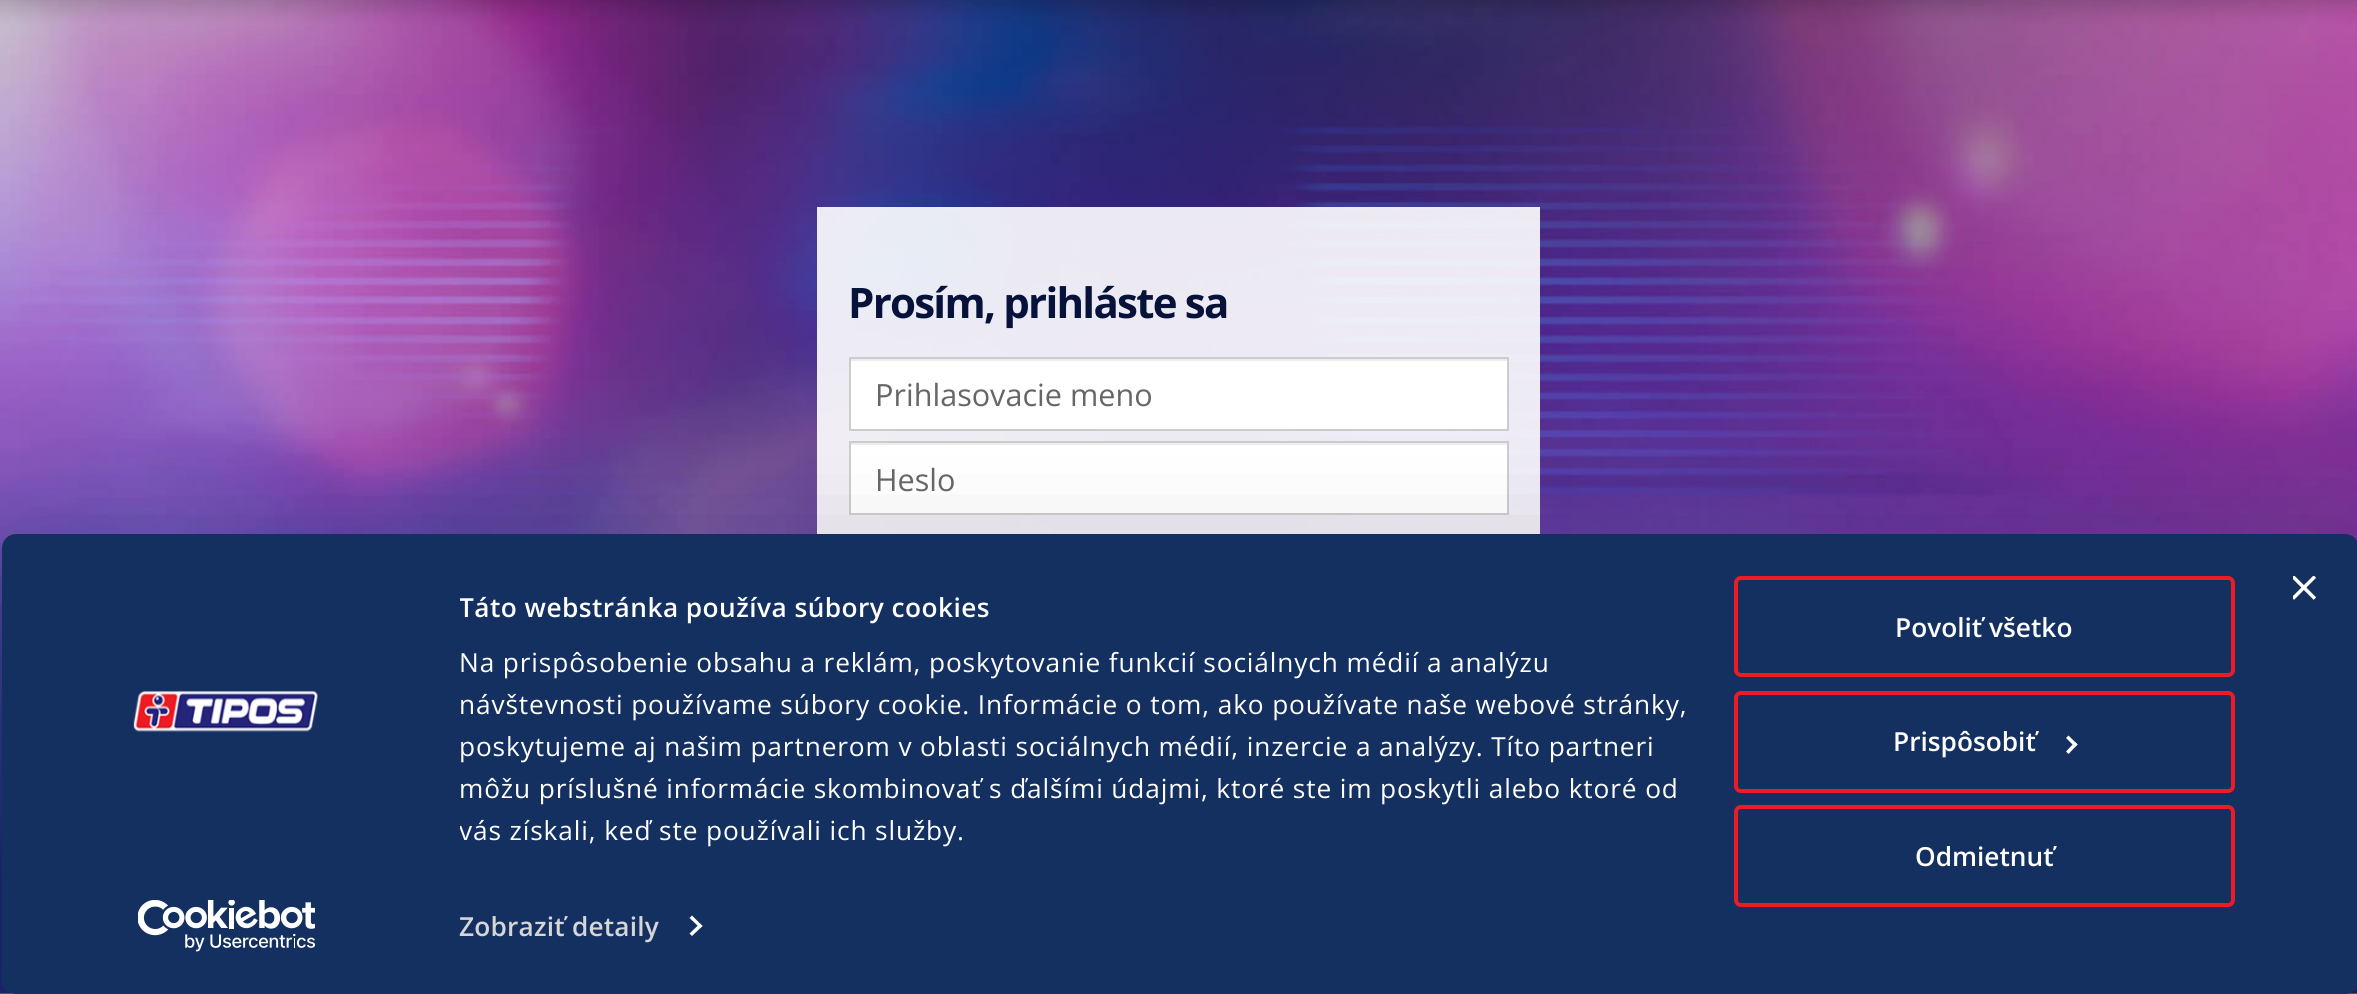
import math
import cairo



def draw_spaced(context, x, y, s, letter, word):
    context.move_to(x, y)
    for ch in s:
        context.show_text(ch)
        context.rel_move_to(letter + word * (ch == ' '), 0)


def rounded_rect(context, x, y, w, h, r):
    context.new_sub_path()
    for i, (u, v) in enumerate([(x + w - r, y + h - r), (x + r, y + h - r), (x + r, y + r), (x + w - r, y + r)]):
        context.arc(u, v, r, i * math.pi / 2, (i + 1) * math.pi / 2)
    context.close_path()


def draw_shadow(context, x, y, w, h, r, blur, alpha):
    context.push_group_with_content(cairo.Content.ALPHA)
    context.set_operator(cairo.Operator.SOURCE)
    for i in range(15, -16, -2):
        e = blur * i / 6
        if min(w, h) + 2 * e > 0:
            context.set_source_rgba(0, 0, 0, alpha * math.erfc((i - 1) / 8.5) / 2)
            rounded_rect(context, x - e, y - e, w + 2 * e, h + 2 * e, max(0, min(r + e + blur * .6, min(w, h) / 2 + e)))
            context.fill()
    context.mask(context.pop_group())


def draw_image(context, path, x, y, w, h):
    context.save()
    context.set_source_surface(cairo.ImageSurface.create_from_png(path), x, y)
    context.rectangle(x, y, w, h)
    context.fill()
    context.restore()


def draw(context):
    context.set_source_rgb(1, 1, 1)
    context.paint()
    draw_image(context, "images/1.png", 0, 0, 2357, 994)
    context.set_source_rgba(1, 1, 1, 0.9)
    context.rectangle(817, 207, 723, 327)
    context.fill()
    context.set_source_rgb(1, 1, 1)
    context.rectangle(851, 361, 656, 68)
    context.fill()
    context.set_source_rgb(236 / 255, 236 / 255, 236 / 255)
    context.rectangle(851, 359, 656, 2)
    context.fill()
    context.rectangle(850, 358, 658, 72)
    context.set_source_rgb(204 / 255, 204 / 255, 204 / 255)
    context.stroke()
    context.set_source_rgb(1, 1, 1)
    context.rectangle(851, 445, 656, 68)
    context.fill()
    context.set_source_rgb(236 / 255, 236 / 255, 236 / 255)
    context.rectangle(851, 443, 656, 2)
    context.fill()
    context.rectangle(850, 442, 658, 72)
    context.set_source_rgb(204 / 255, 204 / 255, 204 / 255)
    context.stroke()
    context.save()
    context.set_fill_rule(cairo.FillRule.EVEN_ODD)
    context.new_path()
    context.move_to(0, 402)
    context.line_to(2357, 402)
    context.line_to(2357, 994)
    context.line_to(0, 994)
    context.close_path()
    context.move_to(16, 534)
    context.line_to(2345, 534)
    context.curve_to(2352.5, 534, 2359, 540.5, 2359, 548)
    context.line_to(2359, 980)
    context.curve_to(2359, 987.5, 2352.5, 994, 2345, 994)
    context.line_to(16, 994)
    context.curve_to(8.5, 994, 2, 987.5, 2, 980)
    context.line_to(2, 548)
    context.curve_to(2, 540.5, 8.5, 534, 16, 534)
    context.close_path()
    context.clip()
    context.set_source_rgb(0, 0, 0)
    draw_shadow(context, 2, 586, 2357, 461, 14, 61, 0.3)
    context.restore()
    context.set_source_rgb(20 / 255, 48 / 255, 96 / 255)
    rounded_rect(context, 2, 534, 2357, 460, 14)
    context.fill()
    draw_image(context, "images/2.png", 2293, 576, 23, 24)
    draw_image(context, "images/3.png", 133, 690, 185, 42)
    draw_image(context, "images/4.png", 138, 900, 177, 52)
    context.set_source_rgb(1, 1, 1)
    context.new_path()
    context.move_to(692, 915.5)
    context.line_to(702.5, 926)
    context.line_to(700, 928)
    context.line_to(689.5, 918)
    context.close_path()
    context.fill()
    context.new_path()
    context.move_to(700, 923.5)
    context.line_to(702.5, 926)
    context.line_to(692, 936)
    context.line_to(689.5, 933.5)
    context.close_path()
    context.fill()
    rounded_rect(context, 1736, 578, 497, 97, 5)
    context.set_source_rgb(237 / 255, 27 / 255, 36 / 255)
    context.set_line_width(4)
    context.stroke()
    rounded_rect(context, 1736, 693, 497, 98, 5)
    context.stroke()
    context.set_source_rgb(1, 1, 1)
    context.new_path()
    context.move_to(2068.5, 735.5)
    context.line_to(2077.5, 744.5)
    context.line_to(2075, 747)
    context.line_to(2066, 738)
    context.close_path()
    context.fill()
    context.new_path()
    context.move_to(2075, 742)
    context.line_to(2077.5, 744.5)
    context.line_to(2068.5, 754)
    context.line_to(2066, 751.5)
    context.close_path()
    context.fill()
    rounded_rect(context, 1736, 807, 497, 98, 5)
    context.set_source_rgb(237 / 255, 27 / 255, 36 / 255)
    context.stroke()
    context.select_font_face("Open Sans", cairo.FontSlant.NORMAL, cairo.FontWeight.BOLD)
    context.set_font_size(42)
    context.set_source_rgb(6 / 255, 18 / 255, 58 / 255)
    draw_spaced(context, 848, 318, "Prosím, prihláste sa", -1.75, 0)
    context.select_font_face("Open Sans")
    context.set_font_size(30.6)
    context.set_source_rgb(102 / 255, 102 / 255, 102 / 255)
    context.move_to(875, 406)
    context.show_text("Prihlasovacie meno")
    context.move_to(875, 491)
    context.show_text("Heslo")
    context.save()
    context.rectangle(460, 586, 1266, 265)
    context.clip()
    context.select_font_face("Open Sans SemiBold")
    context.set_font_size(26.25)
    context.set_source_rgb(1, 1, 1)
    draw_spaced(context, 459, 617, "Táto webstránka používa súbory cookies", 0.45, 0)
    context.restore()
    context.set_font_size(26.25)
    context.set_source_rgb(1, 1, 1)
    draw_spaced(context, 459, 672, "Na prispôsobenie obsahu a reklám, poskytovanie funkcií sociálnych médií a analýzu", 0.88, 0)
    draw_spaced(context, 459, 714, "návštevnosti používame súbory cookie. Informácie o tom, ako používate naše webové stránky,", 0.88, 0)
    draw_spaced(context, 459, 756, "poskytujeme aj našim partnerom v oblasti sociálnych médií, inzercie a analýzy. Títo partneri", 0.88, 0)
    draw_spaced(context, 459, 798, "môžu príslušné informácie skombinovať s ďalšími údajmi, ktoré ste im poskytli alebo ktoré od", 0.88, 0)
    context.save()
    context.rectangle(460, 586, 1266, 265)
    context.clip()
    draw_spaced(context, 459, 840, "vás získali, keď ste používali ich služby.", 0.88, 0)
    context.restore()
    context.select_font_face("Open Sans SemiBold")
    context.set_source_rgb(214 / 255, 214 / 255, 214 / 255)
    draw_spaced(context, 459, 936, "Zobraziť detaily", 0.2, 0)
    context.set_source_rgb(1, 1, 1)
    context.move_to(1895, 637)
    context.show_text("Povoliť všetko")
    context.move_to(1893, 751)
    context.show_text("Prispôsobiť")
    context.move_to(1915, 866)
    context.show_text("Odmietnuť")


surface = cairo.ImageSurface(cairo.Format.RGB24, 2357, 994)
context = cairo.Context(surface)
options = cairo.FontOptions()
options.set_hint_metrics(cairo.HintMetrics.OFF)
options.set_hint_style(cairo.HintStyle.NONE)
context.set_font_options(options)
context.set_miter_limit(4)
draw(context)
surface.write_to_png("out.png")
